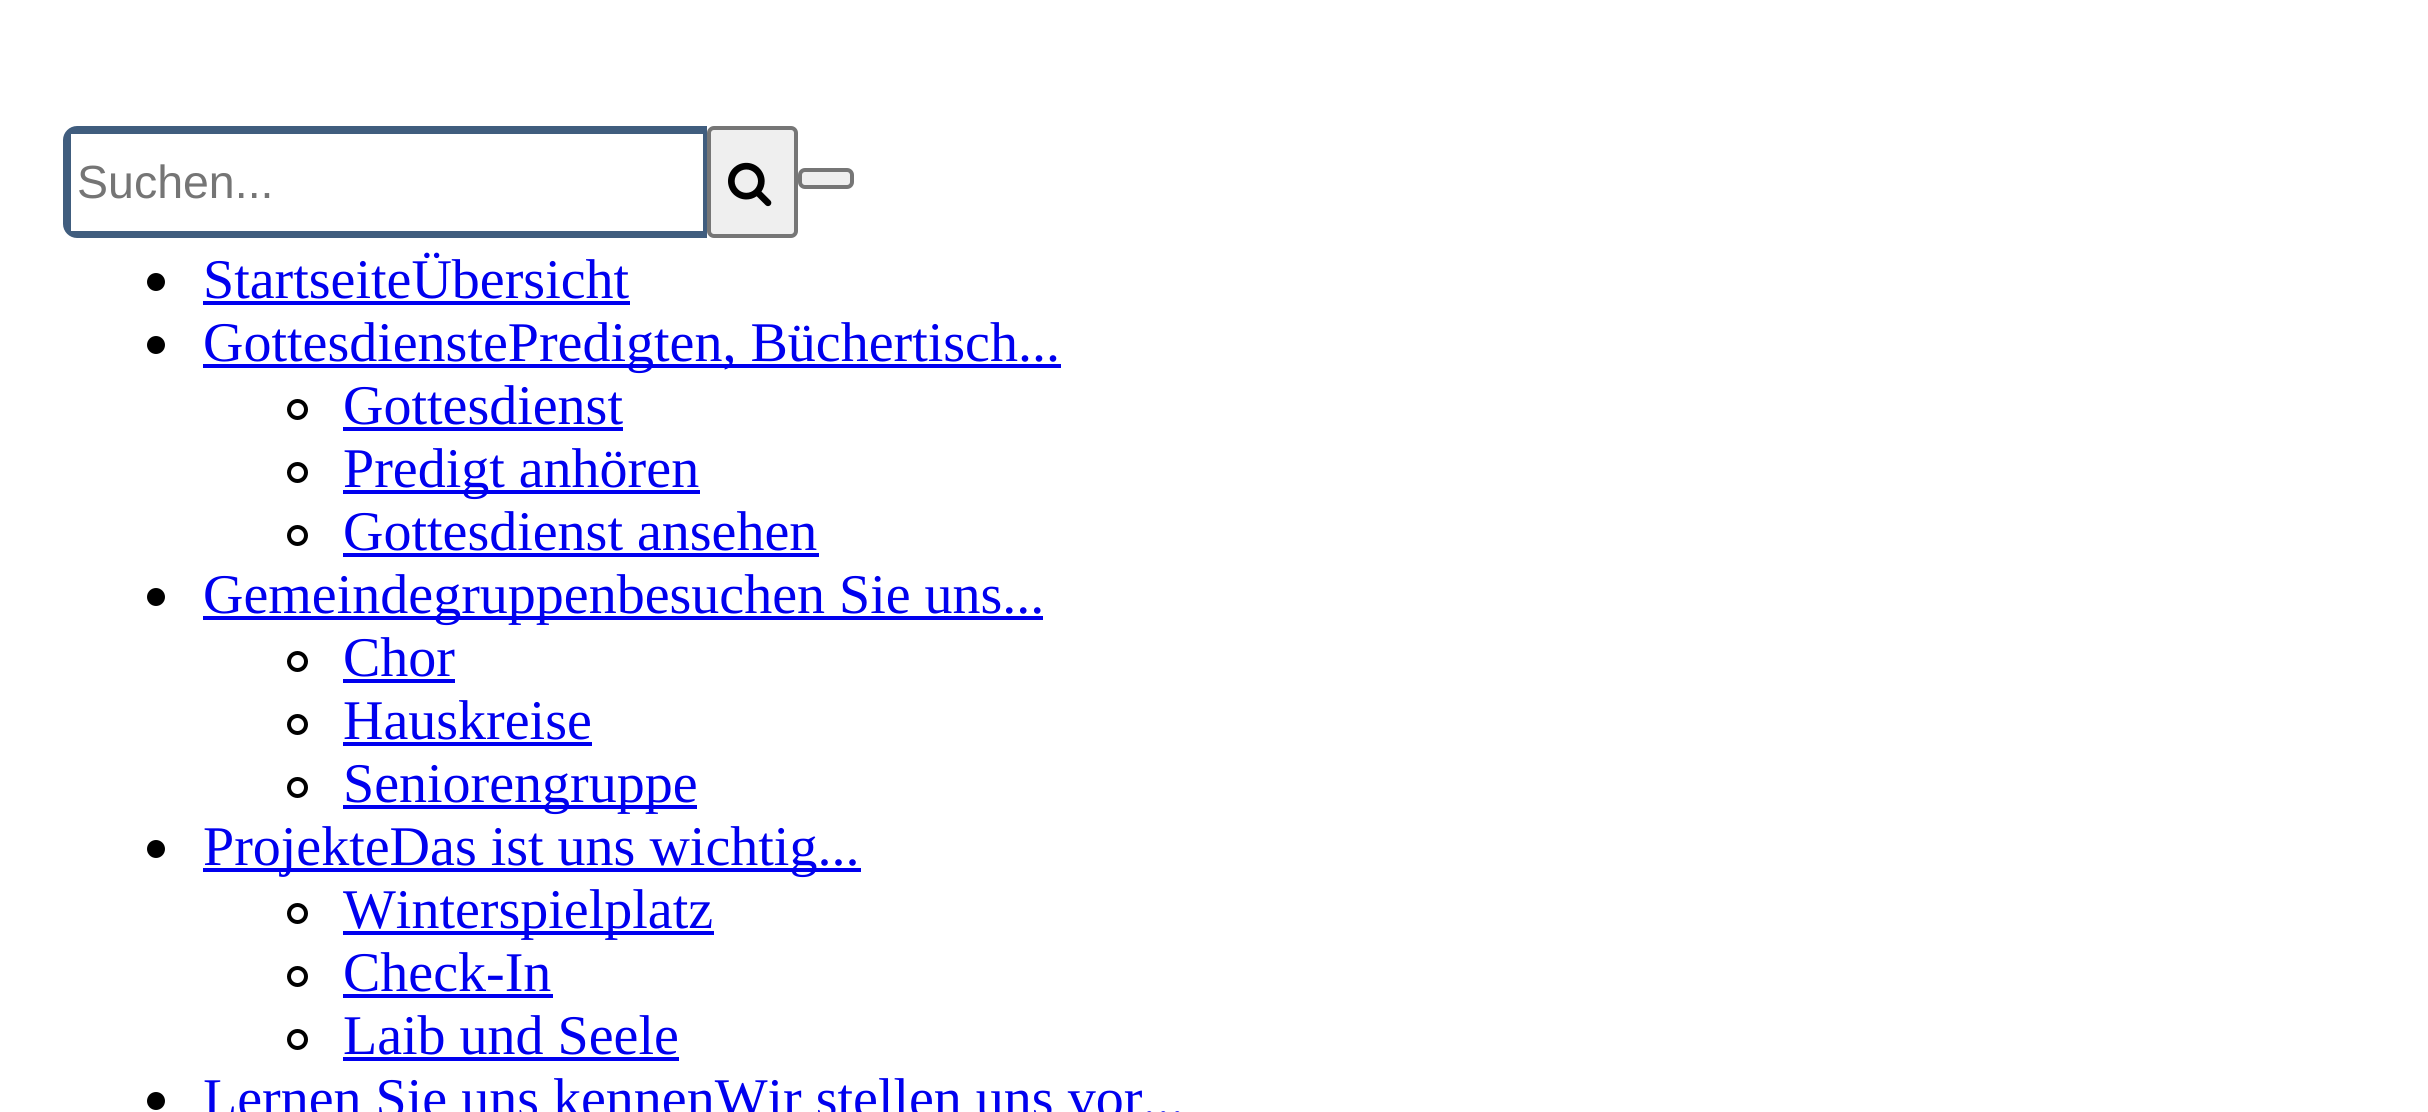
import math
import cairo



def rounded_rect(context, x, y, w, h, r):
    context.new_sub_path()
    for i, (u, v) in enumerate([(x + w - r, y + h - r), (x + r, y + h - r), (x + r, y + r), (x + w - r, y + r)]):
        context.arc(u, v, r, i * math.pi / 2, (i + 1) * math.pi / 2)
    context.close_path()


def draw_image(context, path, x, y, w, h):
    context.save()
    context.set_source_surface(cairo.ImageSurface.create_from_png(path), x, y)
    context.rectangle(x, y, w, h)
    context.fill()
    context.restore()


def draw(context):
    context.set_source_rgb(1, 1, 1)
    context.paint()
    context.new_path()
    context.move_to(77, 128)
    context.line_to(705, 128)
    context.line_to(705, 236)
    context.line_to(77, 236)
    context.curve_to(70.5, 236, 65, 230.5, 65, 224)
    context.line_to(65, 140)
    context.curve_to(65, 133.5, 70.5, 128, 77, 128)
    context.close_path()
    context.set_source_rgb(64 / 255, 93 / 255, 126 / 255)
    context.set_line_width(4)
    context.stroke()
    context.rectangle(70, 130, 637, 4)
    context.fill()
    context.rectangle(70, 231, 637, 3)
    context.fill()
    context.rectangle(67, 133, 4, 98)
    context.fill()
    context.set_source_rgb(239 / 255, 239 / 255, 239 / 255)
    rounded_rect(context, 709, 128, 87, 108, 5)
    context.fill_preserve()
    context.set_source_rgb(118 / 255, 118 / 255, 118 / 255)
    context.stroke()
    draw_image(context, "images/1.png", 728, 162, 44, 45)
    context.set_source_rgb(239 / 255, 239 / 255, 239 / 255)
    rounded_rect(context, 800, 170, 52, 17, 5)
    context.fill_preserve()
    context.set_source_rgb(118 / 255, 118 / 255, 118 / 255)
    context.stroke()
    context.set_source_rgb(0, 0, 0)
    context.arc(156, 282, 9, 0, 2 * math.pi)
    context.fill()
    context.set_source_rgb(0, 0, 238 / 255)
    context.rectangle(203, 301, 427, 4)
    context.fill()
    context.set_source_rgb(0, 0, 0)
    context.arc(156, 345, 9, 0, 2 * math.pi)
    context.fill()
    context.set_source_rgb(0, 0, 238 / 255)
    context.rectangle(203, 364, 858, 4)
    context.fill()
    context.arc(297.5, 409.5, 8.5, 0, 2 * math.pi)
    context.set_source_rgb(0, 0, 0)
    context.stroke()
    context.set_source_rgb(0, 0, 238 / 255)
    context.rectangle(343, 427, 280, 4)
    context.fill()
    context.arc(297.5, 472.5, 8.5, 0, 2 * math.pi)
    context.set_source_rgb(0, 0, 0)
    context.stroke()
    context.set_source_rgb(0, 0, 238 / 255)
    context.rectangle(343, 490, 357, 4)
    context.fill()
    context.arc(297.5, 535.5, 8.5, 0, 2 * math.pi)
    context.set_source_rgb(0, 0, 0)
    context.stroke()
    context.set_source_rgb(0, 0, 238 / 255)
    context.rectangle(343, 553, 476, 4)
    context.fill()
    context.set_source_rgb(0, 0, 0)
    context.arc(156, 597, 9, 0, 2 * math.pi)
    context.fill()
    context.set_source_rgb(0, 0, 238 / 255)
    context.rectangle(203, 616, 840, 4)
    context.fill()
    context.arc(297.5, 661.5, 8.5, 0, 2 * math.pi)
    context.set_source_rgb(0, 0, 0)
    context.stroke()
    context.set_source_rgb(0, 0, 238 / 255)
    context.rectangle(343, 679, 112, 4)
    context.fill()
    context.arc(297.5, 724.5, 8.5, 0, 2 * math.pi)
    context.set_source_rgb(0, 0, 0)
    context.stroke()
    context.set_source_rgb(0, 0, 238 / 255)
    context.rectangle(343, 742, 249, 4)
    context.fill()
    context.arc(297.5, 787.5, 8.5, 0, 2 * math.pi)
    context.set_source_rgb(0, 0, 0)
    context.stroke()
    context.set_source_rgb(0, 0, 238 / 255)
    context.rectangle(343, 805, 354, 4)
    context.fill()
    context.set_source_rgb(0, 0, 0)
    context.arc(156, 849, 9, 0, 2 * math.pi)
    context.fill()
    context.set_source_rgb(0, 0, 238 / 255)
    context.rectangle(203, 868, 658, 4)
    context.fill()
    context.arc(297.5, 913.5, 8.5, 0, 2 * math.pi)
    context.set_source_rgb(0, 0, 0)
    context.stroke()
    context.set_source_rgb(0, 0, 238 / 255)
    context.rectangle(343, 931, 371, 4)
    context.fill()
    context.arc(297.5, 976.5, 8.5, 0, 2 * math.pi)
    context.set_source_rgb(0, 0, 0)
    context.stroke()
    context.set_source_rgb(0, 0, 238 / 255)
    context.rectangle(343, 994, 210, 4)
    context.fill()
    context.arc(297.5, 1039.5, 8.5, 0, 2 * math.pi)
    context.set_source_rgb(0, 0, 0)
    context.stroke()
    context.set_source_rgb(0, 0, 238 / 255)
    context.rectangle(343, 1057, 336, 4)
    context.fill()
    context.set_source_rgb(0, 0, 0)
    context.arc(156, 1101, 9, 0, 2 * math.pi)
    context.fill()
    context.select_font_face("Liberation Sans")
    context.set_font_size(46.5)
    context.set_source_rgb(117 / 255, 117 / 255, 117 / 255)
    context.move_to(77, 198)
    context.show_text("Suchen...")
    context.select_font_face("Liberation Serif")
    context.set_font_size(56)
    context.set_source_rgb(0, 0, 238 / 255)
    context.move_to(203, 298)
    context.show_text("StartseiteÜbersicht")
    context.move_to(203, 361)
    context.show_text("GottesdienstePredigten, Büchertisch...")
    context.move_to(343, 424)
    context.show_text("Gottesdienst")
    context.move_to(343, 487)
    context.show_text("Predigt anhören")
    context.move_to(343, 550)
    context.show_text("Gottesdienst ansehen")
    context.move_to(203, 613)
    context.show_text("Gemeindegruppenbesuchen Sie uns...")
    context.move_to(343, 676)
    context.show_text("Chor")
    context.move_to(343, 739)
    context.show_text("Hauskreise")
    context.move_to(343, 802)
    context.show_text("Seniorengruppe")
    context.move_to(203, 865)
    context.show_text("ProjekteDas ist uns wichtig...")
    context.move_to(343, 928)
    context.show_text("Winterspielplatz")
    context.move_to(343, 991)
    context.show_text("Check-In")
    context.move_to(343, 1054)
    context.show_text("Laib und Seele")
    context.move_to(203, 1117)
    context.show_text("Lernen Sie uns kennenWir stellen uns vor...")


surface = cairo.ImageSurface(cairo.Format.RGB24, 2428, 1112)
context = cairo.Context(surface)
options = cairo.FontOptions()
options.set_hint_metrics(cairo.HintMetrics.OFF)
options.set_hint_style(cairo.HintStyle.NONE)
context.set_font_options(options)
context.set_miter_limit(4)
draw(context)
surface.write_to_png("out.png")
